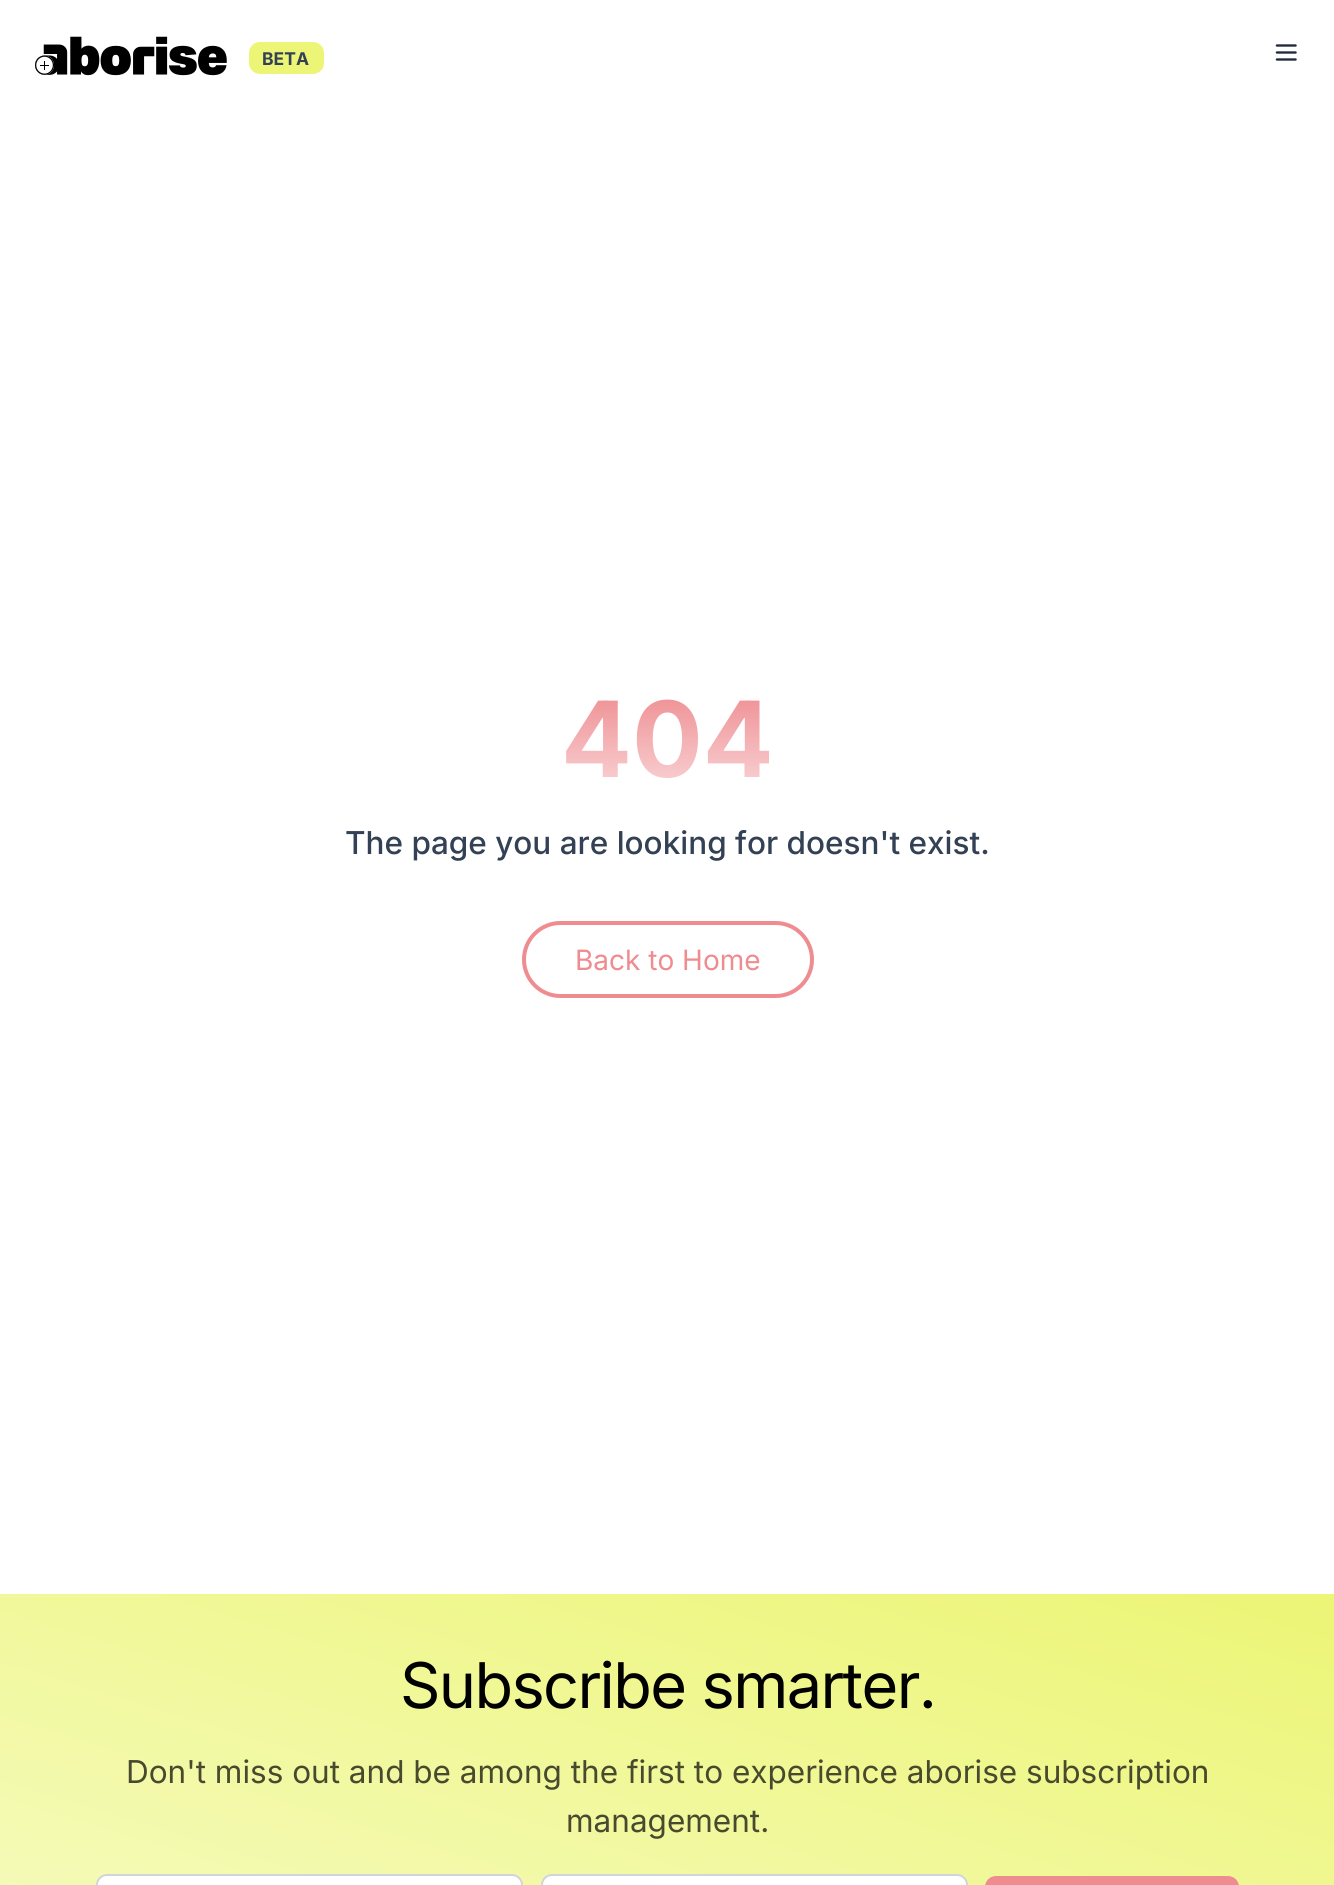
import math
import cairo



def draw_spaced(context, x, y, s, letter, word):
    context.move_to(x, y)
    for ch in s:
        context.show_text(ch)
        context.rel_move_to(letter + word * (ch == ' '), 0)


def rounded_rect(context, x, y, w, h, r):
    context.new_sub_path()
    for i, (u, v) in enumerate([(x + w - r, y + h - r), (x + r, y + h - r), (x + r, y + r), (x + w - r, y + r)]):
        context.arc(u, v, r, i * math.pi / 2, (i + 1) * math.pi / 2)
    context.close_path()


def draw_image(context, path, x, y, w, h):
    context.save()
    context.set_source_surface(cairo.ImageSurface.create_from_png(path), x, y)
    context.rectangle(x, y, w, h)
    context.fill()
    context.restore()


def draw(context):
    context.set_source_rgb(1, 1, 1)
    context.paint()
    draw_image(context, "images/1.png", 35, 36, 192, 40)
    context.set_source_rgb(236 / 255, 245 / 255, 117 / 255)
    rounded_rect(context, 249, 42, 75, 32, 11)
    context.fill()
    draw_image(context, "images/2.png", 1275, 44, 22, 17)
    rounded_rect(context, 524, 923, 288, 73, 36.5)
    context.set_source_rgb(238 / 255, 140 / 255, 144 / 255)
    context.set_line_width(4)
    context.stroke()
    gradient = cairo.LinearGradient(780, 1426, 556, 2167)
    gradient.add_color_stop_rgba(0, 236 / 255, 245 / 255, 117 / 255, 1)
    gradient.add_color_stop_rgba(1, 246 / 255, 251 / 255, 193 / 255, 1)
    context.set_source(gradient)
    context.rectangle(0, 1594, 1334, 291)
    context.fill()
    context.set_source_rgb(1, 1, 1)
    rounded_rect(context, 97, 1875, 425, 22, 10)
    context.fill_preserve()
    context.set_source_rgb(209 / 255, 213 / 255, 219 / 255)
    context.set_line_width(2)
    context.stroke()
    context.set_source_rgb(1, 1, 1)
    rounded_rect(context, 542, 1875, 425, 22, 10)
    context.fill_preserve()
    context.set_source_rgb(209 / 255, 213 / 255, 219 / 255)
    context.stroke()
    context.set_source_rgb(238 / 255, 140 / 255, 144 / 255)
    rounded_rect(context, 985, 1876, 254, 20, 11)
    context.fill()
    context.select_font_face("Inter", cairo.FontSlant.NORMAL, cairo.FontWeight.BOLD)
    context.set_font_size(17.5)
    context.set_source_rgb(51 / 255, 65 / 255, 85 / 255)
    context.move_to(262, 65)
    context.show_text("BETA")
    context.set_font_size(105)
    gradient = cairo.LinearGradient(668, 686, 668, 791)
    gradient.add_color_stop_rgba(0, 238 / 255, 140 / 255, 144 / 255, 1)
    gradient.add_color_stop_rgba(1, 249 / 255, 211 / 255, 213 / 255, 1)
    context.set_source(gradient)
    context.move_to(561, 777)
    context.show_text("404")
    context.select_font_face("Inter Medium")
    context.set_font_size(31.5)
    context.set_source_rgb(51 / 255, 65 / 255, 85 / 255)
    context.move_to(345, 854)
    context.show_text("The page you are looking for doesn't exist.")
    context.select_font_face("Inter")
    context.set_font_size(28)
    context.set_source_rgb(238 / 255, 140 / 255, 144 / 255)
    context.move_to(575, 970)
    context.show_text("Back to Home")
    context.set_font_size(63)
    context.set_source_rgb(0, 0, 0)
    draw_spaced(context, 400, 1708, "Subscribe smarter.", -1.6, 0)
    context.set_font_size(31.5)
    context.set_source_rgb(72 / 255, 74 / 255, 46 / 255)
    context.move_to(126, 1783)
    context.show_text("Don't miss out and be among the first to experience aborise subscription")
    context.move_to(566, 1832)
    context.show_text("management.")


surface = cairo.ImageSurface(cairo.Format.RGB24, 1334, 1885)
context = cairo.Context(surface)
options = cairo.FontOptions()
options.set_hint_metrics(cairo.HintMetrics.OFF)
options.set_hint_style(cairo.HintStyle.NONE)
context.set_font_options(options)
context.set_miter_limit(4)
draw(context)
surface.write_to_png("out.png")
